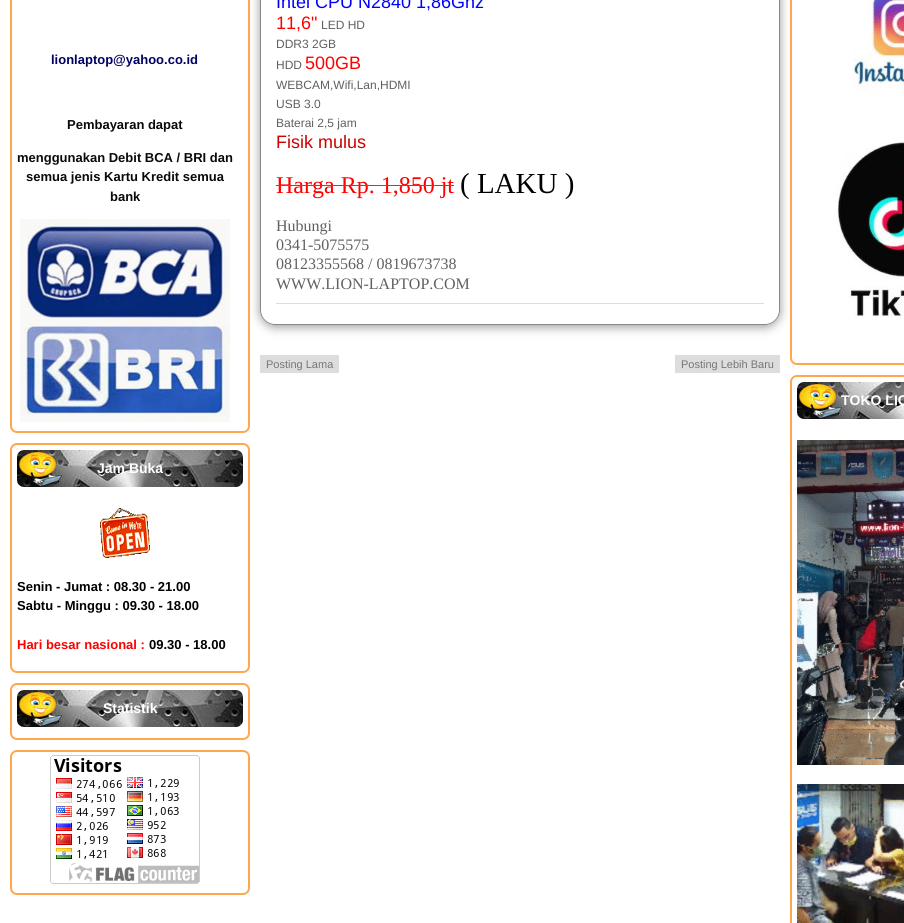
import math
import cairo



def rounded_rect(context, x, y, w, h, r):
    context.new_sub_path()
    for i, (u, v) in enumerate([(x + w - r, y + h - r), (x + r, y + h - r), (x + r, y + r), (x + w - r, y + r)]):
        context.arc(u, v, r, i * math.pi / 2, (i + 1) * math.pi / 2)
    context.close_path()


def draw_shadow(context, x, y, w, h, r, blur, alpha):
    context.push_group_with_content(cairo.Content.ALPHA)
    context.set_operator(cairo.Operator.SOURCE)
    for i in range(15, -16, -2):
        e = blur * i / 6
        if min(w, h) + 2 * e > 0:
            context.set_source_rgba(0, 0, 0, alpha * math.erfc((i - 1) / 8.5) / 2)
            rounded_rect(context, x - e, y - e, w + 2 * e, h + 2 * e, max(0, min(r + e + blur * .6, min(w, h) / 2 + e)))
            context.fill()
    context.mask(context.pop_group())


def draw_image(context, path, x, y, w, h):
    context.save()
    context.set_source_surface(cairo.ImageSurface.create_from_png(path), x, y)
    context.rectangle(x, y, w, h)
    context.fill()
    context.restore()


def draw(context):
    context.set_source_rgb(1, 1, 1)
    context.paint()
    rounded_rect(context, 11, -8, 238, 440, 6)
    context.set_source_rgb(1, 167 / 255, 79 / 255)
    context.stroke()
    draw_image(context, "images/1.png", 20, 219, 210, 203)
    rounded_rect(context, 11, 444, 238, 228, 6)
    context.stroke()
    draw_image(context, "images/2.png", 17, 450, 226, 37)
    draw_image(context, "images/3.png", 100, 508, 50, 50)
    rounded_rect(context, 11, 684, 238, 55, 6)
    context.stroke()
    draw_image(context, "images/4.png", 17, 690, 226, 37)
    rounded_rect(context, 11, 751, 238, 143, 6)
    context.stroke()
    draw_image(context, "images/5.png", 50, 755, 150, 129)
    context.save()
    context.set_fill_rule(cairo.FillRule.EVEN_ODD)
    context.new_path()
    context.move_to(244, 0)
    context.line_to(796, 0)
    context.line_to(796, 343)
    context.line_to(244, 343)
    context.close_path()
    context.move_to(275, -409)
    context.line_to(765, -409)
    context.curve_to(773.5, -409, 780, -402.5, 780, -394)
    context.line_to(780, 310)
    context.curve_to(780, 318.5, 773.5, 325, 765, 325)
    context.line_to(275, 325)
    context.curve_to(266.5, 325, 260, 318.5, 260, 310)
    context.line_to(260, -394)
    context.curve_to(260, -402.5, 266.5, -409, 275, -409)
    context.close_path()
    context.clip()
    context.set_source_rgb(153 / 255, 153 / 255, 153 / 255)
    draw_shadow(context, 260, -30, 520, 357, 15, 5, 1)
    context.restore()
    rounded_rect(context, 260.5, -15.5, 519, 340, 14.5)
    context.set_source_rgb(138 / 255, 137 / 255, 137 / 255)
    context.set_line_width(1)
    context.stroke()
    context.set_source_rgb(221 / 255, 221 / 255, 221 / 255)
    context.rectangle(276, 303, 488, 1)
    context.fill()
    context.rectangle(260, 355, 79, 18)
    context.fill()
    context.rectangle(675, 355, 105, 18)
    context.fill()
    rounded_rect(context, 791, -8, 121, 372, 6)
    context.set_source_rgb(1, 167 / 255, 79 / 255)
    context.set_line_width(2)
    context.stroke()
    draw_image(context, "images/6.png", 852, 0, 52, 97)
    draw_image(context, "images/7.png", 836, 142, 68, 175)
    rounded_rect(context, 791, 376, 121, 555, 6)
    context.stroke()
    draw_image(context, "images/8.png", 797, 382, 107, 37)
    draw_image(context, "images/9.png", 797, 440, 107, 325)
    draw_image(context, "images/10.png", 797, 784, 107, 139)
    context.select_font_face("Liberation Sans", cairo.FontSlant.NORMAL, cairo.FontWeight.BOLD)
    context.set_font_size(13)
    context.set_source_rgb(1 / 255, 1 / 255, 100 / 255)
    context.move_to(51, 64)
    context.show_text("lionlaptop@yahoo.co.id")
    context.set_source_rgb(10 / 255, 10 / 255, 10 / 255)
    context.move_to(67, 129)
    context.show_text("Pembayaran dapat")
    context.move_to(17, 162)
    context.show_text("menggunakan Debit BCA / BRI dan")
    context.move_to(26, 181)
    context.show_text("semua jenis Kartu Kredit semua")
    context.move_to(110, 201)
    context.show_text("bank")
    context.set_font_size(14)
    context.set_source_rgb(1, 1, 1)
    context.move_to(97, 473)
    context.show_text("Jam Buka")
    context.set_font_size(13)
    context.set_source_rgb(0, 0, 0)
    context.move_to(17, 591)
    context.show_text("Senin - Jumat : 08.30 - 21.00")
    context.move_to(17, 610)
    context.show_text("Sabtu - Minggu : 09.30 - 18.00")
    context.set_source_rgb(1, 0, 0)
    context.move_to(17, 649)
    context.show_text("Hari besar nasional :")
    context.set_source_rgb(0, 0, 0)
    context.move_to(149, 649)
    context.show_text("09.30 - 18.00")
    context.set_font_size(14)
    context.set_source_rgb(1, 1, 1)
    context.move_to(103, 713)
    context.show_text("Statistik")
    context.select_font_face("Liberation Sans")
    context.set_font_size(18)
    context.set_source_rgb(0, 0, 1)
    context.move_to(276, 8)
    context.show_text("Intel CPU N2840 1,86Ghz")
    context.set_source_rgb(1, 0, 0)
    context.move_to(276, 29)
    context.show_text("11,6\"")
    context.set_font_size(12)
    context.set_source_rgb(96 / 255, 96 / 255, 96 / 255)
    context.move_to(321, 29)
    context.show_text("LED HD")
    context.move_to(276, 48)
    context.show_text("DDR3 2GB")
    context.move_to(276, 69)
    context.show_text("HDD")
    context.set_font_size(18)
    context.set_source_rgb(1, 0, 0)
    context.move_to(305, 69)
    context.show_text("500GB")
    context.set_font_size(12)
    context.set_source_rgb(96 / 255, 96 / 255, 96 / 255)
    context.move_to(276, 89)
    context.show_text("WEBCAM,Wifi,Lan,HDMI")
    context.move_to(276, 108)
    context.show_text("USB 3.0")
    context.move_to(276, 127)
    context.show_text("Baterai 2,5 jam")
    context.set_font_size(18)
    context.set_source_rgb(204 / 255, 0, 0)
    context.move_to(276, 148)
    context.show_text("Fisik mulus")
    context.select_font_face("Liberation Serif")
    context.set_font_size(24)
    context.set_source_rgb(1, 0, 0)
    context.move_to(276, 193)
    context.show_text("Harga Rp. 1,850 jt")
    context.set_source_rgb(96 / 255, 96 / 255, 96 / 255)
    context.rectangle(276, 185, 178, 1)
    context.fill()
    context.set_font_size(29)
    context.set_source_rgb(0, 0, 0)
    context.move_to(460, 193)
    context.show_text("( LAKU )")
    context.set_font_size(16)
    context.set_source_rgb(96 / 255, 96 / 255, 96 / 255)
    context.move_to(276, 231)
    context.show_text("Hubungi")
    context.move_to(276, 250)
    context.show_text("0341-5075575")
    context.move_to(276, 269)
    context.show_text("08123355568 / 0819673738")
    context.move_to(276, 289)
    context.show_text("WWW.LION-LAPTOP.COM")
    context.select_font_face("Liberation Sans")
    context.set_font_size(11)
    context.set_source_rgb(118 / 255, 118 / 255, 118 / 255)
    context.move_to(266, 368)
    context.show_text("Posting Lama")
    context.move_to(681, 368)
    context.show_text("Posting Lebih Baru")
    context.select_font_face("Liberation Sans", cairo.FontSlant.NORMAL, cairo.FontWeight.BOLD)
    context.set_font_size(14)
    context.set_source_rgb(1, 1, 1)
    context.move_to(841, 405)
    context.show_text("TOKO LIO")


surface = cairo.ImageSurface(cairo.Format.RGB24, 904, 923)
context = cairo.Context(surface)
options = cairo.FontOptions()
options.set_hint_metrics(cairo.HintMetrics.OFF)
options.set_hint_style(cairo.HintStyle.NONE)
context.set_font_options(options)
context.set_miter_limit(4)
draw(context)
surface.write_to_png("out.png")
